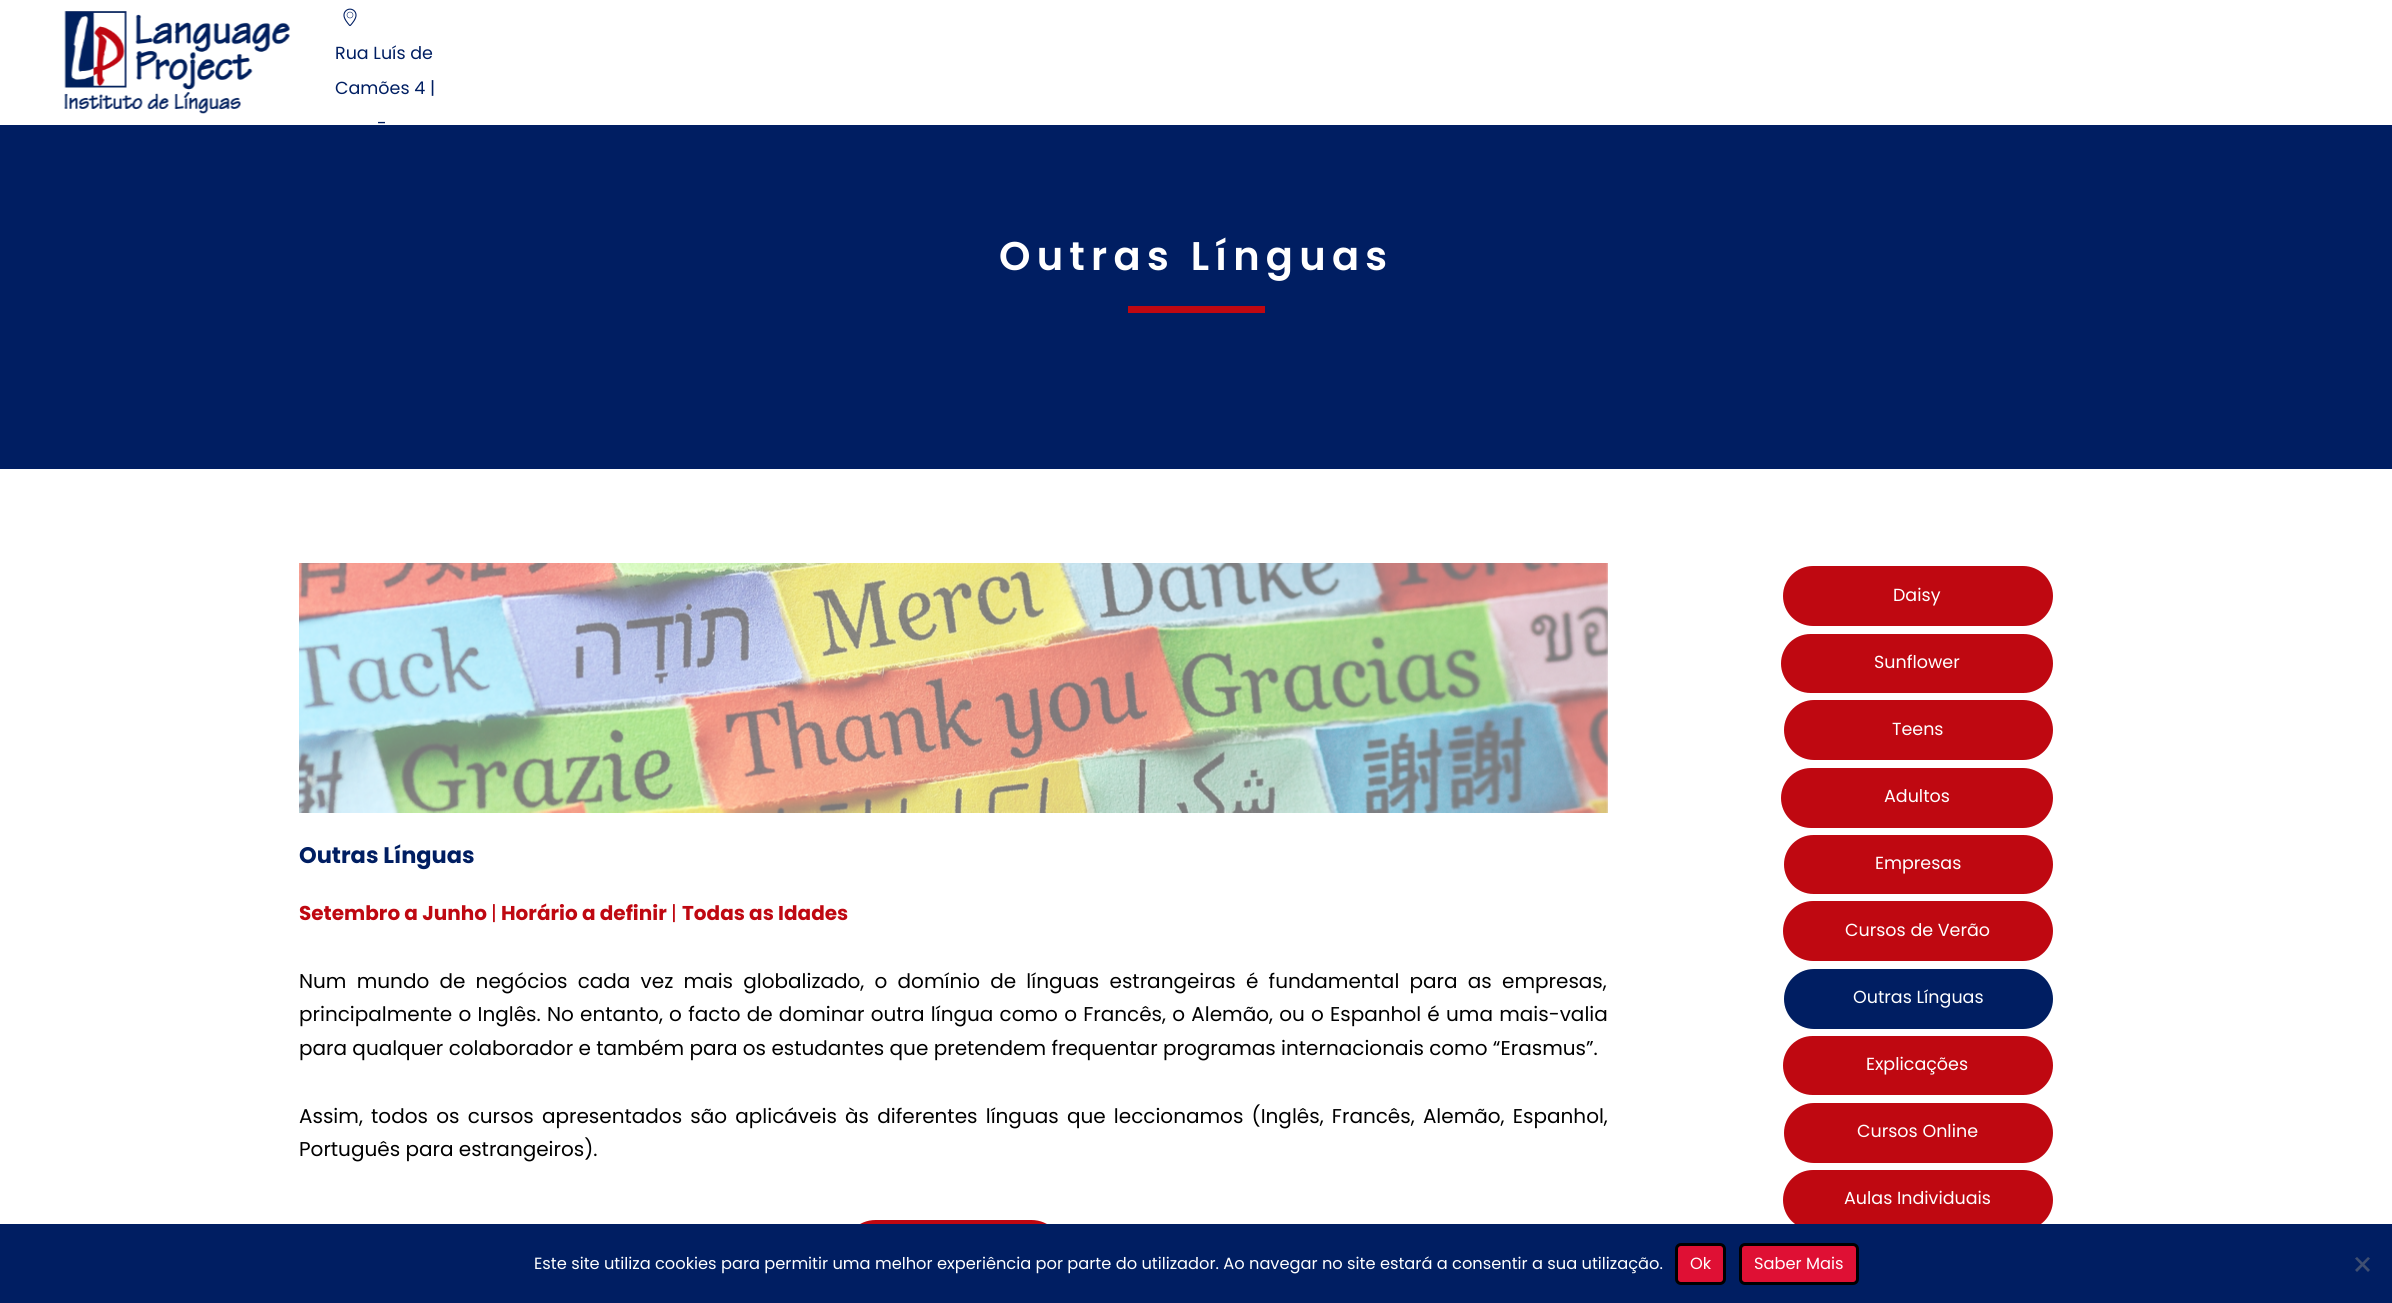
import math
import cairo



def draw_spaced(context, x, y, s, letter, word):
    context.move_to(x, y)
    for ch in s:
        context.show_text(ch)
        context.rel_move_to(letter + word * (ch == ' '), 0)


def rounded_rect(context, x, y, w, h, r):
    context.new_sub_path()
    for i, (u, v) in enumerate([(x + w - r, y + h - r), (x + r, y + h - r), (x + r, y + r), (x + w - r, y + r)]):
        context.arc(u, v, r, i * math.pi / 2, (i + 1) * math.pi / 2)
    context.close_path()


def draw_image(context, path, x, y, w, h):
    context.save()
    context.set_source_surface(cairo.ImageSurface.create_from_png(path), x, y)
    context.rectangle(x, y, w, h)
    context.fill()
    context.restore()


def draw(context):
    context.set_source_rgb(1, 1, 1)
    context.paint()
    draw_image(context, "images/1.png", 64, 11, 226, 103)
    draw_image(context, "images/2.png", 343, 8, 14, 18)
    context.set_source_rgb(0, 30 / 255, 98 / 255)
    context.rectangle(0, 125, 2392, 344)
    context.fill()
    context.set_source_rgb(191 / 255, 8 / 255, 17 / 255)
    context.rectangle(1128, 306, 137, 7)
    context.fill()
    draw_image(context, "images/3.png", 299, 563, 1309, 250)
    rounded_rect(context, 844, 1220, 219, 63, 31.5)
    context.fill()
    rounded_rect(context, 1783, 566, 270, 60, 30)
    context.fill()
    rounded_rect(context, 1781, 634, 272, 59, 29.5)
    context.fill()
    rounded_rect(context, 1784, 700, 269, 60, 30)
    context.fill()
    rounded_rect(context, 1781, 768, 272, 60, 30)
    context.fill()
    rounded_rect(context, 1784, 835, 269, 59, 29.5)
    context.fill()
    rounded_rect(context, 1783, 901, 270, 60, 30)
    context.fill()
    context.set_source_rgb(0, 30 / 255, 98 / 255)
    rounded_rect(context, 1784, 969, 269, 60, 30)
    context.fill()
    context.set_source_rgb(191 / 255, 8 / 255, 17 / 255)
    rounded_rect(context, 1783, 1036, 270, 59, 29.5)
    context.fill()
    rounded_rect(context, 1784, 1103, 269, 60, 30)
    context.fill()
    rounded_rect(context, 1783, 1170, 270, 60, 30)
    context.fill()
    context.set_source_rgb(0, 30 / 255, 98 / 255)
    context.rectangle(0, 1224, 2392, 79)
    context.fill()
    context.set_source_rgb(223 / 255, 16 / 255, 52 / 255)
    rounded_rect(context, 1676.5, 1244.5, 48, 39, 4.5)
    context.fill_preserve()
    context.set_source_rgb(0, 0, 0)
    context.set_line_width(3)
    context.stroke()
    context.set_source_rgb(223 / 255, 16 / 255, 52 / 255)
    rounded_rect(context, 1740.5, 1244.5, 117, 39, 4.5)
    context.fill_preserve()
    context.set_source_rgb(0, 0, 0)
    context.stroke()
    context.set_source_rgb(64 / 255, 79 / 255, 113 / 255)
    context.new_path()
    context.move_to(2368, 1257)
    context.line_to(2370, 1258.5)
    context.line_to(2357, 1272)
    context.line_to(2355, 1270)
    context.close_path()
    context.fill()
    context.new_path()
    context.move_to(2355, 1258.5)
    context.line_to(2357, 1257)
    context.line_to(2370, 1270)
    context.line_to(2368, 1272)
    context.close_path()
    context.fill()
    context.select_font_face("Poppins")
    context.set_font_size(17.5)
    context.set_source_rgb(0, 30 / 255, 98 / 255)
    context.move_to(335, 59)
    context.show_text("Rua Luís de")
    context.move_to(335, 94)
    context.show_text("Camões 4 |")
    context.move_to(377, 129)
    context.show_text("-")
    context.select_font_face("Poppins SemiBold")
    context.set_font_size(40)
    context.set_source_rgb(1, 1, 1)
    draw_spaced(context, 999, 270, "Outras Línguas", 6.25, 0)
    context.select_font_face("Poppins", cairo.FontSlant.NORMAL, cairo.FontWeight.BOLD)
    context.set_font_size(22.5)
    context.set_source_rgb(0, 30 / 255, 98 / 255)
    context.move_to(299, 863)
    context.show_text("Outras Línguas")
    context.set_font_size(20)
    context.set_source_rgb(191 / 255, 8 / 255, 17 / 255)
    context.move_to(299, 920)
    context.show_text("Setembro a Junho")
    context.select_font_face("Poppins")
    context.move_to(491, 920)
    context.show_text("|")
    context.select_font_face("Poppins", cairo.FontSlant.NORMAL, cairo.FontWeight.BOLD)
    context.move_to(501, 920)
    context.show_text("Horário a definir")
    context.select_font_face("Poppins")
    context.move_to(671, 920)
    context.show_text("|")
    context.select_font_face("Poppins", cairo.FontSlant.NORMAL, cairo.FontWeight.BOLD)
    context.move_to(682, 920)
    context.show_text("Todas as Idades")
    context.select_font_face("Poppins")
    context.set_source_rgb(0, 0, 0)
    draw_spaced(context, 299, 988, "Num mundo de negócios cada vez mais globalizado, o domínio de línguas estrangeiras é fundamental para as empresas,", 0, 4.9)
    draw_spaced(context, 299, 1021, "principalmente o Inglês. No entanto, o facto de dominar outra língua como o Francês, o Alemão, ou o Espanhol é uma mais-valia", 0, 0.9)
    context.move_to(299, 1055)
    context.show_text("para qualquer colaborador e também para os estudantes que pretendem frequentar programas internacionais como “Erasmus”.")
    draw_spaced(context, 299, 1123, "Assim, todos os cursos apresentados são aplicáveis às diferentes línguas que leccionamos (Inglês, Francês, Alemão, Espanhol,", 0, 2.9)
    context.move_to(299, 1156)
    context.show_text("Português para estrangeiros).")
    context.set_font_size(17.5)
    context.set_source_rgb(1, 1, 1)
    context.move_to(1893, 601)
    context.show_text("Daisy")
    context.move_to(1874, 668)
    context.show_text("Sunflower")
    context.move_to(1892, 735)
    context.show_text("Teens")
    context.move_to(1884, 802)
    context.show_text("Adultos")
    context.move_to(1875, 869)
    context.show_text("Empresas")
    context.move_to(1845, 936)
    context.show_text("Cursos de Verão")
    context.move_to(1853, 1003)
    context.show_text("Outras Línguas")
    context.move_to(1866, 1070)
    context.show_text("Explicações")
    context.move_to(1857, 1137)
    context.show_text("Cursos Online")
    context.move_to(1844, 1204)
    context.show_text("Aulas Individuais")
    context.set_font_size(16.25)
    context.move_to(534, 1269)
    context.show_text("Este site utiliza cookies para permitir uma melhor experiência por parte do utilizador. Ao navegar no site estará a consentir a sua utilização.")
    context.move_to(1690, 1269)
    context.show_text("Ok")
    context.move_to(1754, 1269)
    context.show_text("Saber Mais")


surface = cairo.ImageSurface(cairo.Format.RGB24, 2392, 1303)
context = cairo.Context(surface)
options = cairo.FontOptions()
options.set_hint_metrics(cairo.HintMetrics.OFF)
options.set_hint_style(cairo.HintStyle.NONE)
context.set_font_options(options)
context.set_miter_limit(4)
draw(context)
surface.write_to_png("out.png")
